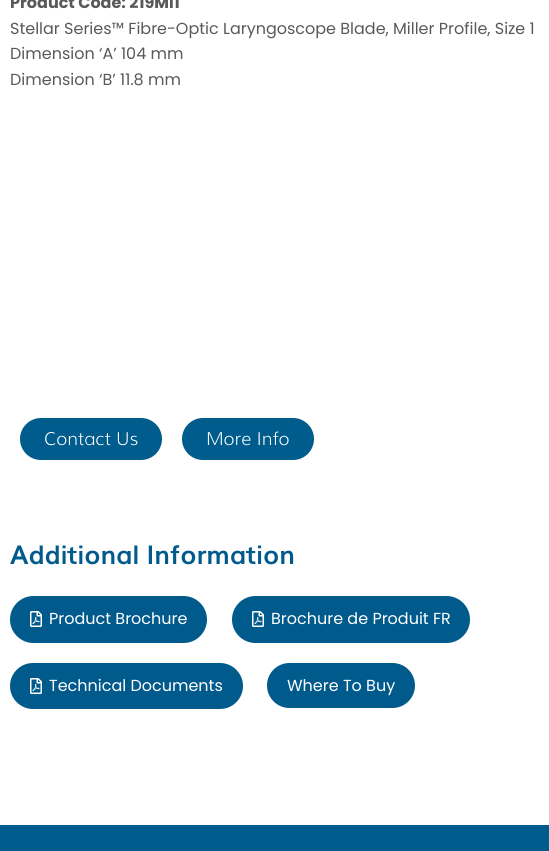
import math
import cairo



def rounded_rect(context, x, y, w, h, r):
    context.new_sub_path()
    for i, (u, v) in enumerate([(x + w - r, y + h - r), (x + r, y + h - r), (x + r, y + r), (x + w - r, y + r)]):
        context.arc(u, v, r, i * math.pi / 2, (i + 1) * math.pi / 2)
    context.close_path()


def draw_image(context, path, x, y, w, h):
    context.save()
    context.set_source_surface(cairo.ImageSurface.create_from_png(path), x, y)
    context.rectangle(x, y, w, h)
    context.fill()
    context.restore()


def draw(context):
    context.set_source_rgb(1, 1, 1)
    context.paint()
    context.set_source_rgb(0, 92 / 255, 140 / 255)
    rounded_rect(context, 20, 418, 142, 42, 21)
    context.fill()
    rounded_rect(context, 182, 418, 132, 42, 21)
    context.fill()
    context.set_source_rgb(0, 90 / 255, 140 / 255)
    rounded_rect(context, 10, 596, 197, 47, 23.5)
    context.fill()
    draw_image(context, "images/1.png", 30, 611, 12, 16)
    rounded_rect(context, 232, 596, 238, 47, 23.5)
    context.fill()
    draw_image(context, "images/1.png", 252, 611, 12, 16)
    rounded_rect(context, 10, 663, 233, 46, 23)
    context.fill()
    draw_image(context, "images/1.png", 30, 678, 12, 16)
    rounded_rect(context, 267, 663, 148, 45, 22.5)
    context.fill()
    context.set_source_rgb(0, 92 / 255, 140 / 255)
    context.rectangle(0, 825, 549, 26)
    context.fill()
    context.select_font_face("Poppins", cairo.FontSlant.NORMAL, cairo.FontWeight.BOLD)
    context.set_font_size(16)
    context.set_source_rgb(89 / 255, 89 / 255, 91 / 255)
    context.move_to(10, 8)
    context.show_text("Product Code: 219MI1")
    context.select_font_face("Poppins")
    context.move_to(10, 34)
    context.show_text("Stellar Series™ Fibre-Optic Laryngoscope Blade, Miller Profile, Size 1")
    context.move_to(10, 59)
    context.show_text("Dimension ‘A’ 104 mm")
    context.move_to(10, 85)
    context.show_text("Dimension ‘B’ 11.8 mm")
    context.select_font_face("Muli Light")
    context.set_font_size(18)
    context.set_source_rgb(1, 1, 1)
    context.move_to(44, 445)
    context.show_text("Contact Us")
    context.move_to(206, 445)
    context.show_text("More Info")
    context.select_font_face("Muli", cairo.FontSlant.NORMAL, cairo.FontWeight.BOLD)
    context.set_font_size(26)
    context.set_source_rgb(0, 90 / 255, 140 / 255)
    context.move_to(10, 564)
    context.show_text("Additional Information")
    context.select_font_face("Poppins")
    context.set_font_size(16)
    context.set_source_rgb(1, 1, 1)
    context.move_to(49, 624)
    context.show_text("Product Brochure")
    context.move_to(271, 624)
    context.show_text("Brochure de Produit FR")
    context.move_to(49, 691)
    context.show_text("Technical Documents")
    context.move_to(287, 691)
    context.show_text("Where To Buy")


surface = cairo.ImageSurface(cairo.Format.RGB24, 549, 851)
context = cairo.Context(surface)
options = cairo.FontOptions()
options.set_hint_metrics(cairo.HintMetrics.OFF)
options.set_hint_style(cairo.HintStyle.NONE)
context.set_font_options(options)
context.set_miter_limit(4)
draw(context)
surface.write_to_png("out.png")
